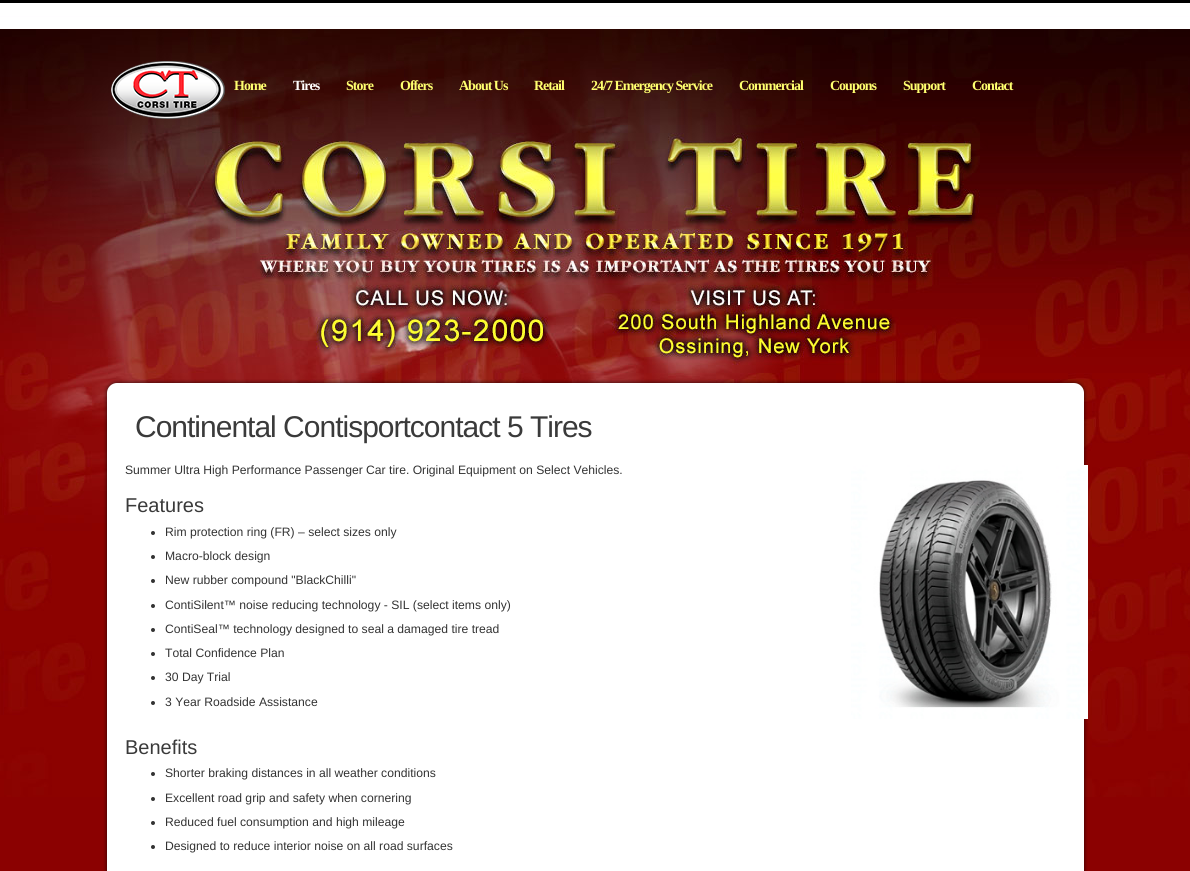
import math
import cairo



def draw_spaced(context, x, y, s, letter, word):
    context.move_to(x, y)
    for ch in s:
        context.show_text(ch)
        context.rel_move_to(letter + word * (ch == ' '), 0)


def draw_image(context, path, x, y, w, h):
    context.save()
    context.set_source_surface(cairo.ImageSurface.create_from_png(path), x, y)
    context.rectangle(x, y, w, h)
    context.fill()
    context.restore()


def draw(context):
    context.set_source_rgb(139 / 255, 1 / 255, 1 / 255)
    context.paint()
    draw_image(context, "images/1.png", 0, 3, 1190, 15)
    context.set_source_rgb(0, 0, 0)
    context.rectangle(0, 0, 1190, 3)
    context.fill()
    context.set_source_rgb(1, 1, 1)
    context.rectangle(0, 18, 1190, 11)
    context.fill()
    draw_image(context, "images/2.png", 0, 29, 1190, 350)
    draw_image(context, "images/3.png", 111, 61, 114, 58)
    draw_image(context, "images/4.png", 0, 379, 1190, 418)
    draw_image(context, "images/5.png", 103, 379, 985, 15)
    draw_image(context, "images/6.png", 103, 394, 985, 477)
    context.set_source_rgb(51 / 255, 51 / 255, 51 / 255)
    context.arc(153, 533, 2, 0, 2 * math.pi)
    context.fill()
    context.arc(153, 557, 2, 0, 2 * math.pi)
    context.fill()
    context.arc(153, 581, 2, 0, 2 * math.pi)
    context.fill()
    context.arc(153, 606, 2, 0, 2 * math.pi)
    context.fill()
    context.arc(153, 630, 2, 0, 2 * math.pi)
    context.fill()
    context.arc(153, 654, 2, 0, 2 * math.pi)
    context.fill()
    context.arc(153, 678, 2, 0, 2 * math.pi)
    context.fill()
    context.arc(153, 703, 2, 0, 2 * math.pi)
    context.fill()
    context.arc(153, 774, 2, 0, 2 * math.pi)
    context.fill()
    context.arc(153, 799, 2, 0, 2 * math.pi)
    context.fill()
    context.arc(153, 823, 2, 0, 2 * math.pi)
    context.fill()
    context.arc(153, 847, 2, 0, 2 * math.pi)
    context.fill()
    draw_image(context, "images/7.png", 851, 465, 237, 254)
    context.select_font_face("Liberation Serif", cairo.FontSlant.NORMAL, cairo.FontWeight.BOLD)
    context.set_font_size(14)
    context.set_source_rgb(1, 1, 111 / 255)
    draw_spaced(context, 234, 90, "Home", -1, 0)
    context.set_source_rgb(1, 1, 1)
    draw_spaced(context, 293, 90, "Tires", -1, 0)
    context.set_source_rgb(1, 1, 111 / 255)
    draw_spaced(context, 346, 90, "Store", -1, 0)
    draw_spaced(context, 400, 90, "Offers", -1, 0)
    draw_spaced(context, 459, 90, "About Us", -1, 0)
    draw_spaced(context, 534, 90, "Retail", -1, 0)
    draw_spaced(context, 591, 90, "24/7 Emergency Service", -1, 0)
    draw_spaced(context, 739, 90, "Commercial", -1, 0)
    draw_spaced(context, 830, 90, "Coupons", -1, 0)
    draw_spaced(context, 903, 90, "Support", -1, 0)
    draw_spaced(context, 972, 90, "Contact", -1, 0)
    context.select_font_face("Liberation Sans")
    context.set_font_size(30)
    context.set_source_rgb(58 / 255, 58 / 255, 58 / 255)
    draw_spaced(context, 135, 437, "Continental Contisportcontact 5 Tires", -1, 0)
    context.set_font_size(12.15)
    context.set_source_rgb(51 / 255, 51 / 255, 51 / 255)
    context.move_to(125, 474)
    context.show_text("Summer Ultra High Performance Passenger Car tire. Original Equipment on Select Vehicles.")
    context.set_font_size(20)
    context.set_source_rgb(58 / 255, 58 / 255, 58 / 255)
    context.move_to(125, 512)
    context.show_text("Features")
    context.set_font_size(12.15)
    context.set_source_rgb(51 / 255, 51 / 255, 51 / 255)
    context.move_to(165, 536)
    context.show_text("Rim protection ring (FR) – select sizes only")
    context.move_to(165, 560)
    context.show_text("Macro-block design")
    context.move_to(165, 584)
    context.show_text("New rubber compound \"BlackChilli\"")
    context.move_to(165, 609)
    context.show_text("ContiSilent™ noise reducing technology - SIL (select items only)")
    context.move_to(165, 633)
    context.show_text("ContiSeal™ technology designed to seal a damaged tire tread")
    context.move_to(165, 657)
    context.show_text("Total Confidence Plan")
    context.move_to(165, 681)
    context.show_text("30 Day Trial")
    context.move_to(165, 706)
    context.show_text("3 Year Roadside Assistance")
    context.set_font_size(20)
    context.set_source_rgb(58 / 255, 58 / 255, 58 / 255)
    context.move_to(125, 754)
    context.show_text("Benefits")
    context.set_font_size(12.15)
    context.set_source_rgb(51 / 255, 51 / 255, 51 / 255)
    context.move_to(165, 777)
    context.show_text("Shorter braking distances in all weather conditions")
    context.move_to(165, 802)
    context.show_text("Excellent road grip and safety when cornering")
    context.move_to(165, 826)
    context.show_text("Reduced fuel consumption and high mileage")
    context.move_to(165, 850)
    context.show_text("Designed to reduce interior noise on all road surfaces")


surface = cairo.ImageSurface(cairo.Format.RGB24, 1190, 871)
context = cairo.Context(surface)
options = cairo.FontOptions()
options.set_hint_metrics(cairo.HintMetrics.OFF)
options.set_hint_style(cairo.HintStyle.NONE)
context.set_font_options(options)
context.set_miter_limit(4)
draw(context)
surface.write_to_png("out.png")
